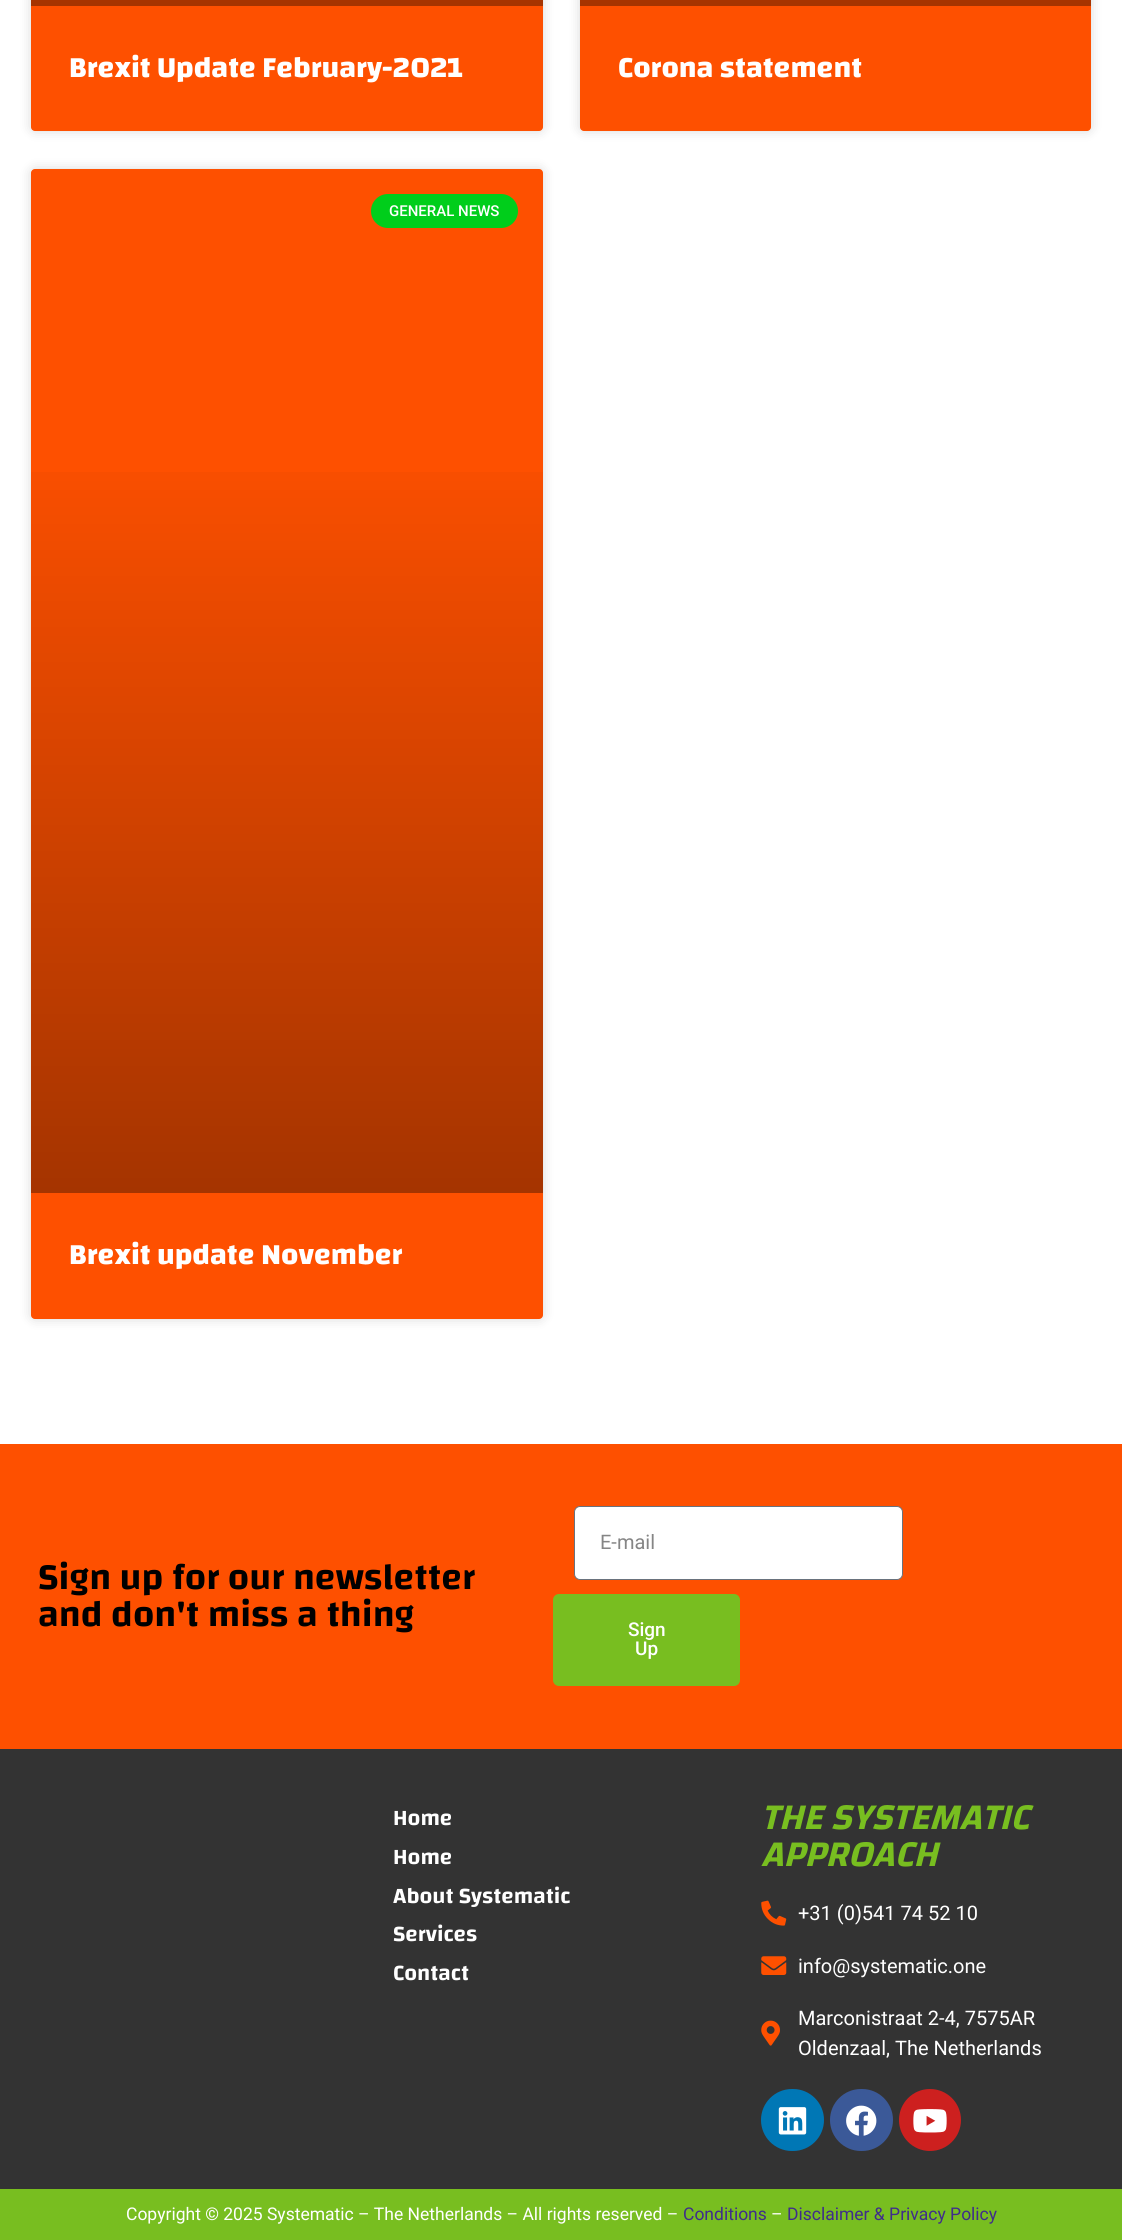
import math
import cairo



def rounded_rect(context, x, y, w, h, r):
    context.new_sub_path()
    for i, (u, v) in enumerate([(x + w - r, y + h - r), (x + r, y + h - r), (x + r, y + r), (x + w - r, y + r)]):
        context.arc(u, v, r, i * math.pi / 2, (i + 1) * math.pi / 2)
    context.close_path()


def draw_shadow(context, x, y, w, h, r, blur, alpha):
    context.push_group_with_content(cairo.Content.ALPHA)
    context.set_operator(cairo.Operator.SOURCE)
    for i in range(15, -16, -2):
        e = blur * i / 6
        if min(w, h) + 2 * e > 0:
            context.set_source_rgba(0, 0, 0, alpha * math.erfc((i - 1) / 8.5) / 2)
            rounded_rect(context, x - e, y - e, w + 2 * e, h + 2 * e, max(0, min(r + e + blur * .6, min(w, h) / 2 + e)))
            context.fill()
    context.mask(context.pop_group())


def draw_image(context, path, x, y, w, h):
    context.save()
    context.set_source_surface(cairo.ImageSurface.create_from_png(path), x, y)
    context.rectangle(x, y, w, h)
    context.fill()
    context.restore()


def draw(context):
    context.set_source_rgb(1, 1, 1)
    context.paint()
    context.set_source_rgb(0, 0, 0)
    draw_shadow(context, 31, -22, 512, 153, 4, 6, 0.15)
    context.set_source_rgb(254 / 255, 80 / 255, 0)
    rounded_rect(context, 31, -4, 512, 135, 4)
    context.fill()
    gradient = cairo.LinearGradient(287, 6.2, 287, -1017)
    gradient.add_color_stop_rgba(0, 165 / 255, 52 / 255, 0, 1)
    gradient.add_color_stop_rgba(0.75, 254 / 255, 80 / 255, 0, 1)
    context.set_source(gradient)
    context.rectangle(31, 0, 512, 6)
    context.fill()
    context.set_source_rgb(0, 0, 0)
    draw_shadow(context, 580, -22, 511, 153, 4, 6, 0.15)
    context.set_source_rgb(254 / 255, 80 / 255, 0)
    rounded_rect(context, 580, -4, 511, 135, 4)
    context.fill()
    gradient = cairo.LinearGradient(836, 6.2, 836, -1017)
    gradient.add_color_stop_rgba(0, 165 / 255, 52 / 255, 0, 1)
    gradient.add_color_stop_rgba(0.75, 254 / 255, 80 / 255, 0, 1)
    context.set_source(gradient)
    context.rectangle(580, 0, 511, 6)
    context.fill()
    context.set_source_rgb(0, 0, 0)
    draw_shadow(context, 31, 169, 512, 1150, 4, 6, 0.15)
    context.set_source_rgb(254 / 255, 80 / 255, 0)
    rounded_rect(context, 31, 169, 512, 1150, 4)
    context.fill()
    context.set_source_rgb(0, 206 / 255, 27 / 255)
    rounded_rect(context, 371, 194, 147, 34, 17)
    context.fill()
    gradient = cairo.LinearGradient(287, 1193, 287, 169)
    gradient.add_color_stop_rgba(0, 0, 0, 0, 0.35)
    gradient.add_color_stop_rgba(0.75, 0, 0, 0, 0)
    context.set_source(gradient)
    context.rectangle(31, 472, 512, 721)
    context.fill()
    context.set_source_rgb(254 / 255, 80 / 255, 0)
    context.rectangle(0, 1444, 1122, 305)
    context.fill()
    context.set_source_rgb(1, 1, 1)
    rounded_rect(context, 574.5, 1506.5, 328, 73, 5.5)
    context.fill_preserve()
    context.set_source_rgb(105 / 255, 114 / 255, 125 / 255)
    context.set_line_width(1)
    context.stroke()
    context.set_source_rgb(120 / 255, 190 / 255, 32 / 255)
    rounded_rect(context, 553, 1594, 187, 92, 6)
    context.fill()
    context.set_source_rgb(51 / 255, 51 / 255, 51 / 255)
    context.rectangle(0, 1749, 1122, 440)
    context.fill()
    draw_image(context, "images/1.png", 761, 1900, 26, 26)
    draw_image(context, "images/2.png", 761, 1956, 26, 19)
    draw_image(context, "images/3.png", 761, 2020, 19, 26)
    context.set_source_rgb(0, 119 / 255, 181 / 255)
    rounded_rect(context, 761, 2089, 63, 62, 31)
    context.fill()
    draw_image(context, "images/4.png", 778, 2107, 29, 28)
    context.set_source_rgb(59 / 255, 89 / 255, 152 / 255)
    rounded_rect(context, 830, 2089, 63, 62, 31)
    context.fill()
    draw_image(context, "images/5.png", 846, 2105, 31, 31)
    context.set_source_rgb(205 / 255, 32 / 255, 31 / 255)
    context.arc(930, 2120, 31, 0, 2 * math.pi)
    context.fill()
    draw_image(context, "images/6.png", 913, 2109, 34, 24)
    context.set_source_rgb(120 / 255, 190 / 255, 32 / 255)
    context.rectangle(0, 2189, 1122, 51)
    context.fill()
    context.select_font_face("Changa", cairo.FontSlant.NORMAL, cairo.FontWeight.BOLD)
    context.set_font_size(30)
    context.set_source_rgb(1, 1, 1)
    context.move_to(69, 77)
    context.show_text("Brexit Update February-2021")
    context.move_to(618, 77)
    context.show_text("Corona statement")
    context.select_font_face("Roboto Medium")
    context.set_font_size(15)
    context.move_to(389, 216)
    context.show_text("GENERAL NEWS")
    context.select_font_face("Changa", cairo.FontSlant.NORMAL, cairo.FontWeight.BOLD)
    context.set_font_size(30)
    context.move_to(69, 1264)
    context.show_text("Brexit update November")
    context.select_font_face("Changa SemiBold")
    context.set_font_size(37.5)
    context.set_source_rgb(0, 0, 0)
    context.move_to(38, 1589)
    context.show_text("Sign up for our newsletter")
    context.move_to(38, 1626)
    context.show_text("and don't miss a thing")
    context.select_font_face("Roboto")
    context.set_font_size(20)
    context.set_source_rgb(133 / 255, 133 / 255, 133 / 255)
    context.move_to(600, 1549)
    context.show_text("E-mail")
    context.select_font_face("Roboto Medium")
    context.set_font_size(19)
    context.set_source_rgb(1, 1, 1)
    context.move_to(628, 1636)
    context.show_text("Sign")
    context.move_to(635, 1655)
    context.show_text("Up")
    context.select_font_face("Changa SemiBold")
    context.set_font_size(22.5)
    context.move_to(393, 1825)
    context.show_text("Home")
    context.move_to(393, 1864)
    context.show_text("Home")
    context.move_to(393, 1903)
    context.show_text("About Systematic")
    context.move_to(393, 1941)
    context.show_text("Services")
    context.move_to(393, 1980)
    context.show_text("Contact")
    context.select_font_face("Changa SemiBold", cairo.FontSlant.ITALIC)
    context.set_font_size(37.5)
    context.set_source_rgb(120 / 255, 190 / 255, 32 / 255)
    context.move_to(761, 1829)
    context.show_text("THE SYSTEMATIC")
    context.move_to(761, 1866)
    context.show_text("APPROACH")
    context.select_font_face("Roboto")
    context.set_font_size(20)
    context.set_source_rgb(1, 1, 1)
    context.move_to(798, 1920)
    context.show_text("+31 (0)541 74 52 10")
    context.move_to(798, 1973)
    context.show_text("info@systematic.one")
    context.move_to(798, 2025)
    context.show_text("Marconistraat 2-4, 7575AR")
    context.move_to(798, 2055)
    context.show_text("Oldenzaal, The Netherlands")
    context.set_font_size(17.5)
    context.move_to(126, 2220)
    context.show_text("Copyright © 2025 Systematic – The Netherlands – All rights reserved –")
    context.set_source_rgb(64 / 255, 45 / 255, 139 / 255)
    context.move_to(683, 2220)
    context.show_text("Conditions")
    context.set_source_rgb(1, 1, 1)
    context.move_to(771, 2220)
    context.show_text("–")
    context.set_source_rgb(64 / 255, 45 / 255, 139 / 255)
    context.move_to(787, 2220)
    context.show_text("Disclaimer & Privacy Policy")


surface = cairo.ImageSurface(cairo.Format.RGB24, 1122, 2240)
context = cairo.Context(surface)
options = cairo.FontOptions()
options.set_hint_metrics(cairo.HintMetrics.OFF)
options.set_hint_style(cairo.HintStyle.NONE)
context.set_font_options(options)
context.set_miter_limit(4)
draw(context)
surface.write_to_png("out.png")
